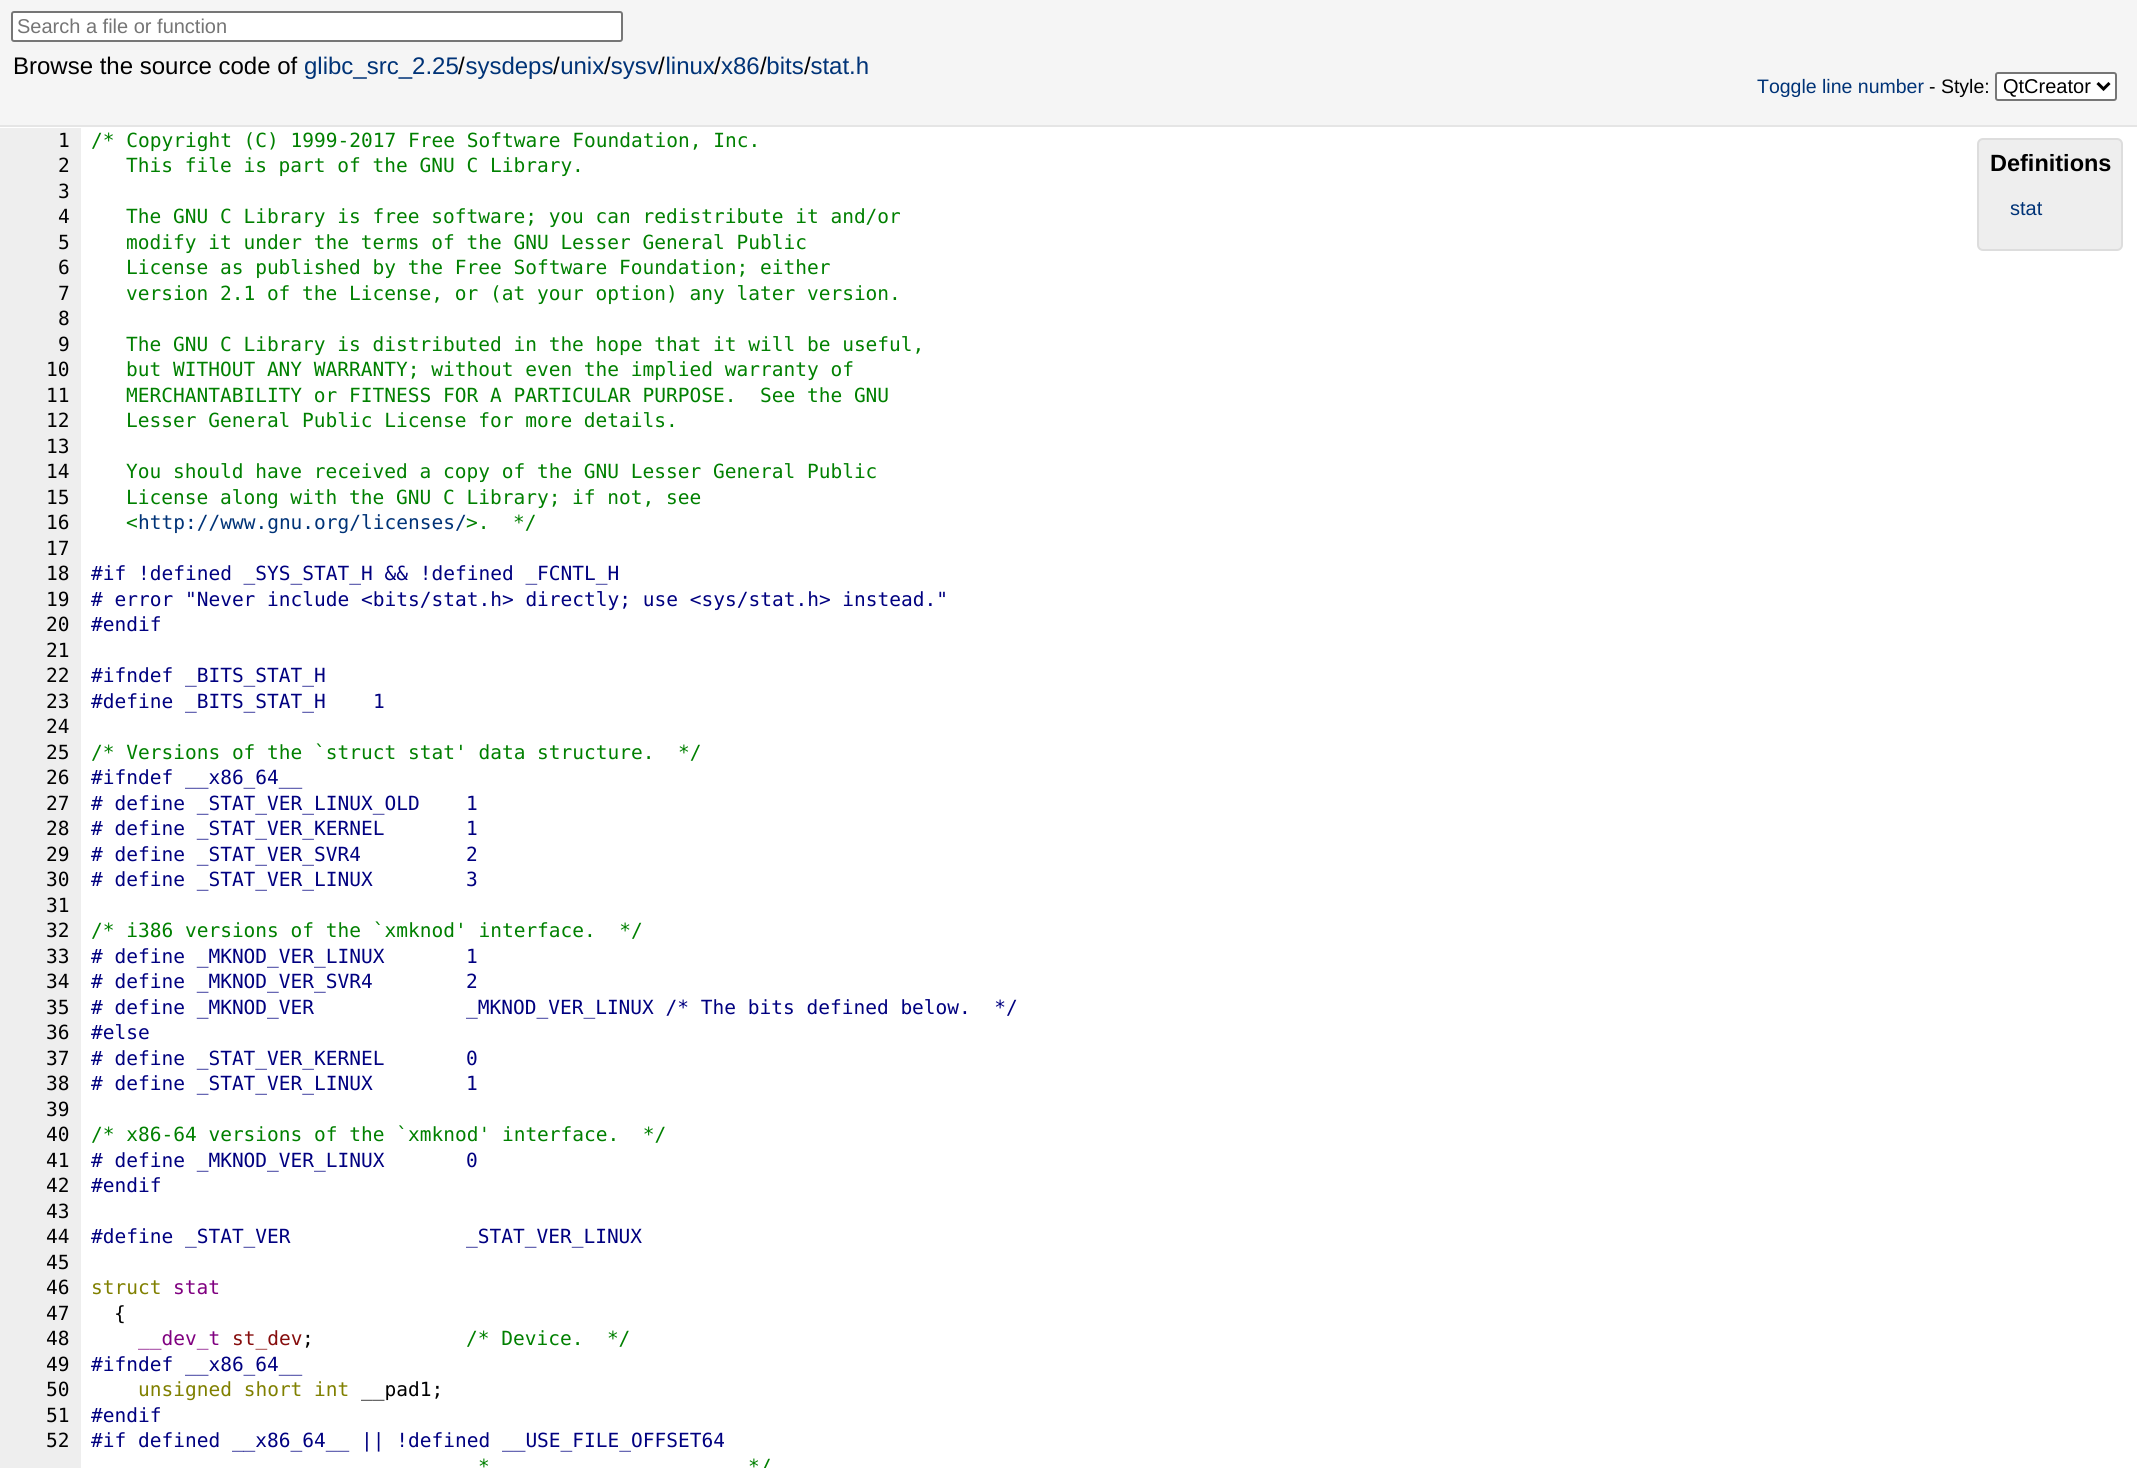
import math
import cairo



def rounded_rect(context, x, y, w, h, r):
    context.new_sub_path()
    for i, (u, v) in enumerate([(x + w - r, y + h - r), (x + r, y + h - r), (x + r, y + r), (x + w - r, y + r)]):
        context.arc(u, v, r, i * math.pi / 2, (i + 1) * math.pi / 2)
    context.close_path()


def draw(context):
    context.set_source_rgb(1, 1, 1)
    context.paint()
    context.set_source_rgb(245 / 255, 245 / 255, 245 / 255)
    context.rectangle(0, 0, 2137, 125)
    context.fill()
    context.set_source_rgb(1, 1, 1)
    rounded_rect(context, 12, 12, 610, 29, 2)
    context.fill_preserve()
    context.set_source_rgb(118 / 255, 118 / 255, 118 / 255)
    context.stroke()
    context.set_source_rgb(1, 1, 1)
    rounded_rect(context, 1996, 73, 120, 27, 2)
    context.fill_preserve()
    context.set_source_rgb(118 / 255, 118 / 255, 118 / 255)
    context.stroke()
    context.new_path()
    context.move_to(2097.5, 83)
    context.line_to(2103.5, 89)
    context.line_to(2109.5, 83)
    context.set_source_rgb(0, 0, 0)
    context.set_line_width(3)
    context.stroke()
    context.set_source_rgb(229 / 255, 229 / 255, 229 / 255)
    context.rectangle(0, 125, 2137, 2)
    context.fill()
    context.set_source_rgb(238 / 255, 238 / 255, 238 / 255)
    context.rectangle(0, 128, 81, 1340)
    context.fill()
    rounded_rect(context, 1978, 139, 144, 111, 5)
    context.fill_preserve()
    context.set_source_rgb(221 / 255, 221 / 255, 221 / 255)
    context.set_line_width(2)
    context.stroke()
    context.select_font_face("Liberation Sans")
    context.set_font_size(20)
    context.set_source_rgb(117 / 255, 117 / 255, 117 / 255)
    context.move_to(17, 33)
    context.show_text("Search a file or function")
    context.set_font_size(24)
    context.set_source_rgb(0, 0, 0)
    context.move_to(13, 74)
    context.show_text("Browse the source code of")
    context.set_source_rgb(0, 51 / 255, 119 / 255)
    context.move_to(304, 74)
    context.show_text("glibc_src_2.25 sysdeps unix sysv linux")
    context.set_source_rgb(0, 0, 0)
    context.move_to(458, 74)
    context.show_text("/")
    context.move_to(553, 74)
    context.show_text("/")
    context.move_to(604, 74)
    context.show_text("/")
    context.move_to(658, 74)
    context.show_text("/")
    context.move_to(714, 74)
    context.show_text("/")
    context.set_source_rgb(0, 51 / 255, 119 / 255)
    context.move_to(721, 74)
    context.show_text("x86 bits stat.h")
    context.set_source_rgb(0, 0, 0)
    context.move_to(760, 74)
    context.show_text("/")
    context.move_to(804, 74)
    context.show_text("/")
    context.set_font_size(19.5)
    context.set_source_rgb(0, 51 / 255, 119 / 255)
    context.move_to(1757, 93)
    context.show_text("Toggle line number")
    context.set_source_rgb(0, 0, 0)
    context.move_to(1929, 93)
    context.show_text("- Style:")
    context.set_font_size(20)
    context.move_to(2003, 93)
    context.show_text("QtCreator")
    context.select_font_face("DejaVu Sans Mono")
    context.set_font_size(19.5)
    context.move_to(58, 147)
    context.show_text("1")
    context.set_source_rgb(0, 128 / 255, 0)
    context.move_to(91, 147)
    context.show_text("/* Copyright (C) 1999-2017 Free Software Foundation, Inc.")
    context.set_source_rgb(0, 0, 0)
    context.move_to(58, 172)
    context.show_text("2")
    context.set_source_rgb(0, 128 / 255, 0)
    context.move_to(126, 172)
    context.show_text("This file is part of the GNU C Library.")
    context.set_source_rgb(0, 0, 0)
    context.move_to(58, 198)
    context.show_text("3")
    context.move_to(58, 223)
    context.show_text("4")
    context.set_source_rgb(0, 128 / 255, 0)
    context.move_to(126, 223)
    context.show_text("The GNU C Library is free software; you can redistribute it and/or")
    context.set_source_rgb(0, 0, 0)
    context.move_to(58, 249)
    context.show_text("5")
    context.set_source_rgb(0, 128 / 255, 0)
    context.move_to(126, 249)
    context.show_text("modify it under the terms of the GNU Lesser General Public")
    context.set_source_rgb(0, 0, 0)
    context.move_to(58, 274)
    context.show_text("6")
    context.set_source_rgb(0, 128 / 255, 0)
    context.move_to(126, 274)
    context.show_text("License as published by the Free Software Foundation; either")
    context.set_source_rgb(0, 0, 0)
    context.move_to(58, 300)
    context.show_text("7")
    context.set_source_rgb(0, 128 / 255, 0)
    context.move_to(126, 300)
    context.show_text("version 2.1 of the License, or (at your option) any later version.")
    context.set_source_rgb(0, 0, 0)
    context.move_to(58, 325)
    context.show_text("8")
    context.move_to(58, 351)
    context.show_text("9")
    context.set_source_rgb(0, 128 / 255, 0)
    context.move_to(126, 351)
    context.show_text("The GNU C Library is distributed in the hope that it will be useful,")
    context.set_source_rgb(0, 0, 0)
    context.move_to(46, 376)
    context.show_text("10")
    context.set_source_rgb(0, 128 / 255, 0)
    context.move_to(126, 376)
    context.show_text("but WITHOUT ANY WARRANTY; without even the implied warranty of")
    context.set_source_rgb(0, 0, 0)
    context.move_to(46, 402)
    context.show_text("11")
    context.set_source_rgb(0, 128 / 255, 0)
    context.move_to(126, 402)
    context.show_text("MERCHANTABILITY or FITNESS FOR A PARTICULAR PURPOSE.  See the GNU")
    context.set_source_rgb(0, 0, 0)
    context.move_to(46, 427)
    context.show_text("12")
    context.set_source_rgb(0, 128 / 255, 0)
    context.move_to(126, 427)
    context.show_text("Lesser General Public License for more details.")
    context.set_source_rgb(0, 0, 0)
    context.move_to(46, 453)
    context.show_text("13")
    context.move_to(46, 478)
    context.show_text("14")
    context.set_source_rgb(0, 128 / 255, 0)
    context.move_to(126, 478)
    context.show_text("You should have received a copy of the GNU Lesser General Public")
    context.set_source_rgb(0, 0, 0)
    context.move_to(46, 504)
    context.show_text("15")
    context.set_source_rgb(0, 128 / 255, 0)
    context.move_to(126, 504)
    context.show_text("License along with the GNU C Library; if not, see")
    context.set_source_rgb(0, 0, 0)
    context.move_to(46, 529)
    context.show_text("16")
    context.set_source_rgb(0, 128 / 255, 0)
    context.move_to(126, 529)
    context.show_text("<")
    context.set_source_rgb(0, 51 / 255, 119 / 255)
    context.move_to(138, 529)
    context.show_text("http://www.gnu.org/licenses/")
    context.set_source_rgb(0, 128 / 255, 0)
    context.move_to(466, 529)
    context.show_text(">.  */")
    context.set_source_rgb(0, 0, 0)
    context.move_to(46, 555)
    context.show_text("17")
    context.move_to(46, 580)
    context.show_text("18")
    context.set_source_rgb(0, 0, 128 / 255)
    context.move_to(91, 580)
    context.show_text("#if !defined _SYS_STAT_H && !defined _FCNTL_H")
    context.set_source_rgb(0, 0, 0)
    context.move_to(46, 606)
    context.show_text("19")
    context.set_source_rgb(0, 0, 128 / 255)
    context.move_to(91, 606)
    context.show_text("# error \"Never include <bits/stat.h> directly; use <sys/stat.h> instead.\"")
    context.set_source_rgb(0, 0, 0)
    context.move_to(46, 631)
    context.show_text("20")
    context.set_source_rgb(0, 0, 128 / 255)
    context.move_to(91, 631)
    context.show_text("#endif")
    context.set_source_rgb(0, 0, 0)
    context.move_to(46, 657)
    context.show_text("21")
    context.move_to(46, 682)
    context.show_text("22")
    context.set_source_rgb(0, 0, 128 / 255)
    context.move_to(91, 682)
    context.show_text("#ifndef _BITS_STAT_H")
    context.set_source_rgb(0, 0, 0)
    context.move_to(46, 708)
    context.show_text("23")
    context.set_source_rgb(0, 0, 128 / 255)
    context.move_to(91, 708)
    context.show_text("#define _BITS_STAT_H")
    context.move_to(373, 708)
    context.show_text("1")
    context.set_source_rgb(0, 0, 0)
    context.move_to(46, 733)
    context.show_text("24")
    context.move_to(46, 759)
    context.show_text("25")
    context.set_source_rgb(0, 128 / 255, 0)
    context.move_to(91, 759)
    context.show_text("/* Versions of the `struct stat' data structure.  */")
    context.set_source_rgb(0, 0, 0)
    context.move_to(46, 784)
    context.show_text("26")
    context.set_source_rgb(0, 0, 128 / 255)
    context.move_to(91, 784)
    context.show_text("#ifndef __x86_64__")
    context.set_source_rgb(0, 0, 0)
    context.move_to(46, 810)
    context.show_text("27")
    context.set_source_rgb(0, 0, 128 / 255)
    context.move_to(91, 810)
    context.show_text("# define _STAT_VER_LINUX_OLD")
    context.move_to(466, 810)
    context.show_text("1")
    context.set_source_rgb(0, 0, 0)
    context.move_to(46, 835)
    context.show_text("28")
    context.set_source_rgb(0, 0, 128 / 255)
    context.move_to(91, 835)
    context.show_text("# define _STAT_VER_KERNEL")
    context.move_to(466, 835)
    context.show_text("1")
    context.set_source_rgb(0, 0, 0)
    context.move_to(46, 861)
    context.show_text("29")
    context.set_source_rgb(0, 0, 128 / 255)
    context.move_to(91, 861)
    context.show_text("# define _STAT_VER_SVR4")
    context.move_to(466, 861)
    context.show_text("2")
    context.set_source_rgb(0, 0, 0)
    context.move_to(46, 886)
    context.show_text("30")
    context.set_source_rgb(0, 0, 128 / 255)
    context.move_to(91, 886)
    context.show_text("# define _STAT_VER_LINUX")
    context.move_to(466, 886)
    context.show_text("3")
    context.set_source_rgb(0, 0, 0)
    context.move_to(46, 912)
    context.show_text("31")
    context.move_to(46, 937)
    context.show_text("32")
    context.set_source_rgb(0, 128 / 255, 0)
    context.move_to(91, 937)
    context.show_text("/* i386 versions of the `xmknod' interface.  */")
    context.set_source_rgb(0, 0, 0)
    context.move_to(46, 963)
    context.show_text("33")
    context.set_source_rgb(0, 0, 128 / 255)
    context.move_to(91, 963)
    context.show_text("# define _MKNOD_VER_LINUX")
    context.move_to(466, 963)
    context.show_text("1")
    context.set_source_rgb(0, 0, 0)
    context.move_to(46, 988)
    context.show_text("34")
    context.set_source_rgb(0, 0, 128 / 255)
    context.move_to(91, 988)
    context.show_text("# define _MKNOD_VER_SVR4")
    context.move_to(466, 988)
    context.show_text("2")
    context.set_source_rgb(0, 0, 0)
    context.move_to(46, 1014)
    context.show_text("35")
    context.set_source_rgb(0, 0, 128 / 255)
    context.move_to(91, 1014)
    context.show_text("# define _MKNOD_VER")
    context.move_to(466, 1014)
    context.show_text("_MKNOD_VER_LINUX /* The bits defined below.  */")
    context.set_source_rgb(0, 0, 0)
    context.move_to(46, 1039)
    context.show_text("36")
    context.set_source_rgb(0, 0, 128 / 255)
    context.move_to(91, 1039)
    context.show_text("#else")
    context.set_source_rgb(0, 0, 0)
    context.move_to(46, 1065)
    context.show_text("37")
    context.set_source_rgb(0, 0, 128 / 255)
    context.move_to(91, 1065)
    context.show_text("# define _STAT_VER_KERNEL")
    context.move_to(466, 1065)
    context.show_text("0")
    context.set_source_rgb(0, 0, 0)
    context.move_to(46, 1090)
    context.show_text("38")
    context.set_source_rgb(0, 0, 128 / 255)
    context.move_to(91, 1090)
    context.show_text("# define _STAT_VER_LINUX")
    context.move_to(466, 1090)
    context.show_text("1")
    context.set_source_rgb(0, 0, 0)
    context.move_to(46, 1116)
    context.show_text("39")
    context.move_to(46, 1141)
    context.show_text("40")
    context.set_source_rgb(0, 128 / 255, 0)
    context.move_to(91, 1141)
    context.show_text("/* x86-64 versions of the `xmknod' interface.  */")
    context.set_source_rgb(0, 0, 0)
    context.move_to(46, 1167)
    context.show_text("41")
    context.set_source_rgb(0, 0, 128 / 255)
    context.move_to(91, 1167)
    context.show_text("# define _MKNOD_VER_LINUX")
    context.move_to(466, 1167)
    context.show_text("0")
    context.set_source_rgb(0, 0, 0)
    context.move_to(46, 1192)
    context.show_text("42")
    context.set_source_rgb(0, 0, 128 / 255)
    context.move_to(91, 1192)
    context.show_text("#endif")
    context.set_source_rgb(0, 0, 0)
    context.move_to(46, 1218)
    context.show_text("43")
    context.move_to(46, 1243)
    context.show_text("44")
    context.set_source_rgb(0, 0, 128 / 255)
    context.move_to(91, 1243)
    context.show_text("#define _STAT_VER")
    context.move_to(466, 1243)
    context.show_text("_STAT_VER_LINUX")
    context.set_source_rgb(0, 0, 0)
    context.move_to(46, 1269)
    context.show_text("45")
    context.move_to(46, 1294)
    context.show_text("46")
    context.set_source_rgb(128 / 255, 128 / 255, 0)
    context.move_to(91, 1294)
    context.show_text("struct")
    context.set_source_rgb(128 / 255, 0, 128 / 255)
    context.move_to(173, 1294)
    context.show_text("stat")
    context.set_source_rgb(0, 0, 0)
    context.move_to(46, 1320)
    context.show_text("47")
    context.move_to(114, 1320)
    context.show_text("{")
    context.move_to(46, 1345)
    context.show_text("48")
    context.set_source_rgb(128 / 255, 0, 128 / 255)
    context.move_to(138, 1345)
    context.show_text("__dev_t")
    context.set_source_rgb(134 / 255, 13 / 255, 13 / 255)
    context.move_to(232, 1345)
    context.show_text("st_dev")
    context.set_source_rgb(0, 0, 0)
    context.move_to(302, 1345)
    context.show_text(";")
    context.set_source_rgb(0, 128 / 255, 0)
    context.move_to(466, 1345)
    context.show_text("/* Device.  */")
    context.set_source_rgb(0, 0, 0)
    context.move_to(46, 1371)
    context.show_text("49")
    context.set_source_rgb(0, 0, 128 / 255)
    context.move_to(91, 1371)
    context.show_text("#ifndef __x86_64__")
    context.set_source_rgb(0, 0, 0)
    context.move_to(46, 1396)
    context.show_text("50")
    context.set_source_rgb(128 / 255, 128 / 255, 0)
    context.move_to(138, 1396)
    context.show_text("unsigned short int")
    context.set_source_rgb(0, 0, 0)
    context.move_to(361, 1396)
    context.show_text("__pad1;")
    context.move_to(46, 1422)
    context.show_text("51")
    context.set_source_rgb(0, 0, 128 / 255)
    context.move_to(91, 1422)
    context.show_text("#endif")
    context.set_source_rgb(0, 0, 0)
    context.move_to(46, 1447)
    context.show_text("52")
    context.set_source_rgb(0, 0, 128 / 255)
    context.move_to(91, 1447)
    context.show_text("#if defined __x86_64__ || !defined __USE_FILE_OFFSET64")
    context.set_source_rgb(0, 128 / 255, 0)
    context.move_to(478, 1473)
    context.show_text("*")
    context.move_to(748, 1473)
    context.show_text("*/")
    context.select_font_face("Liberation Sans", cairo.FontSlant.NORMAL, cairo.FontWeight.BOLD)
    context.set_font_size(23.5)
    context.set_source_rgb(0, 0, 0)
    context.move_to(1990, 171)
    context.show_text("Definitions")
    context.select_font_face("Liberation Sans")
    context.set_font_size(20)
    context.set_source_rgb(0, 51 / 255, 119 / 255)
    context.move_to(2010, 215)
    context.show_text("stat")


surface = cairo.ImageSurface(cairo.Format.RGB24, 2137, 1468)
context = cairo.Context(surface)
options = cairo.FontOptions()
options.set_hint_metrics(cairo.HintMetrics.OFF)
options.set_hint_style(cairo.HintStyle.NONE)
context.set_font_options(options)
context.set_miter_limit(4)
draw(context)
surface.write_to_png("out.png")
